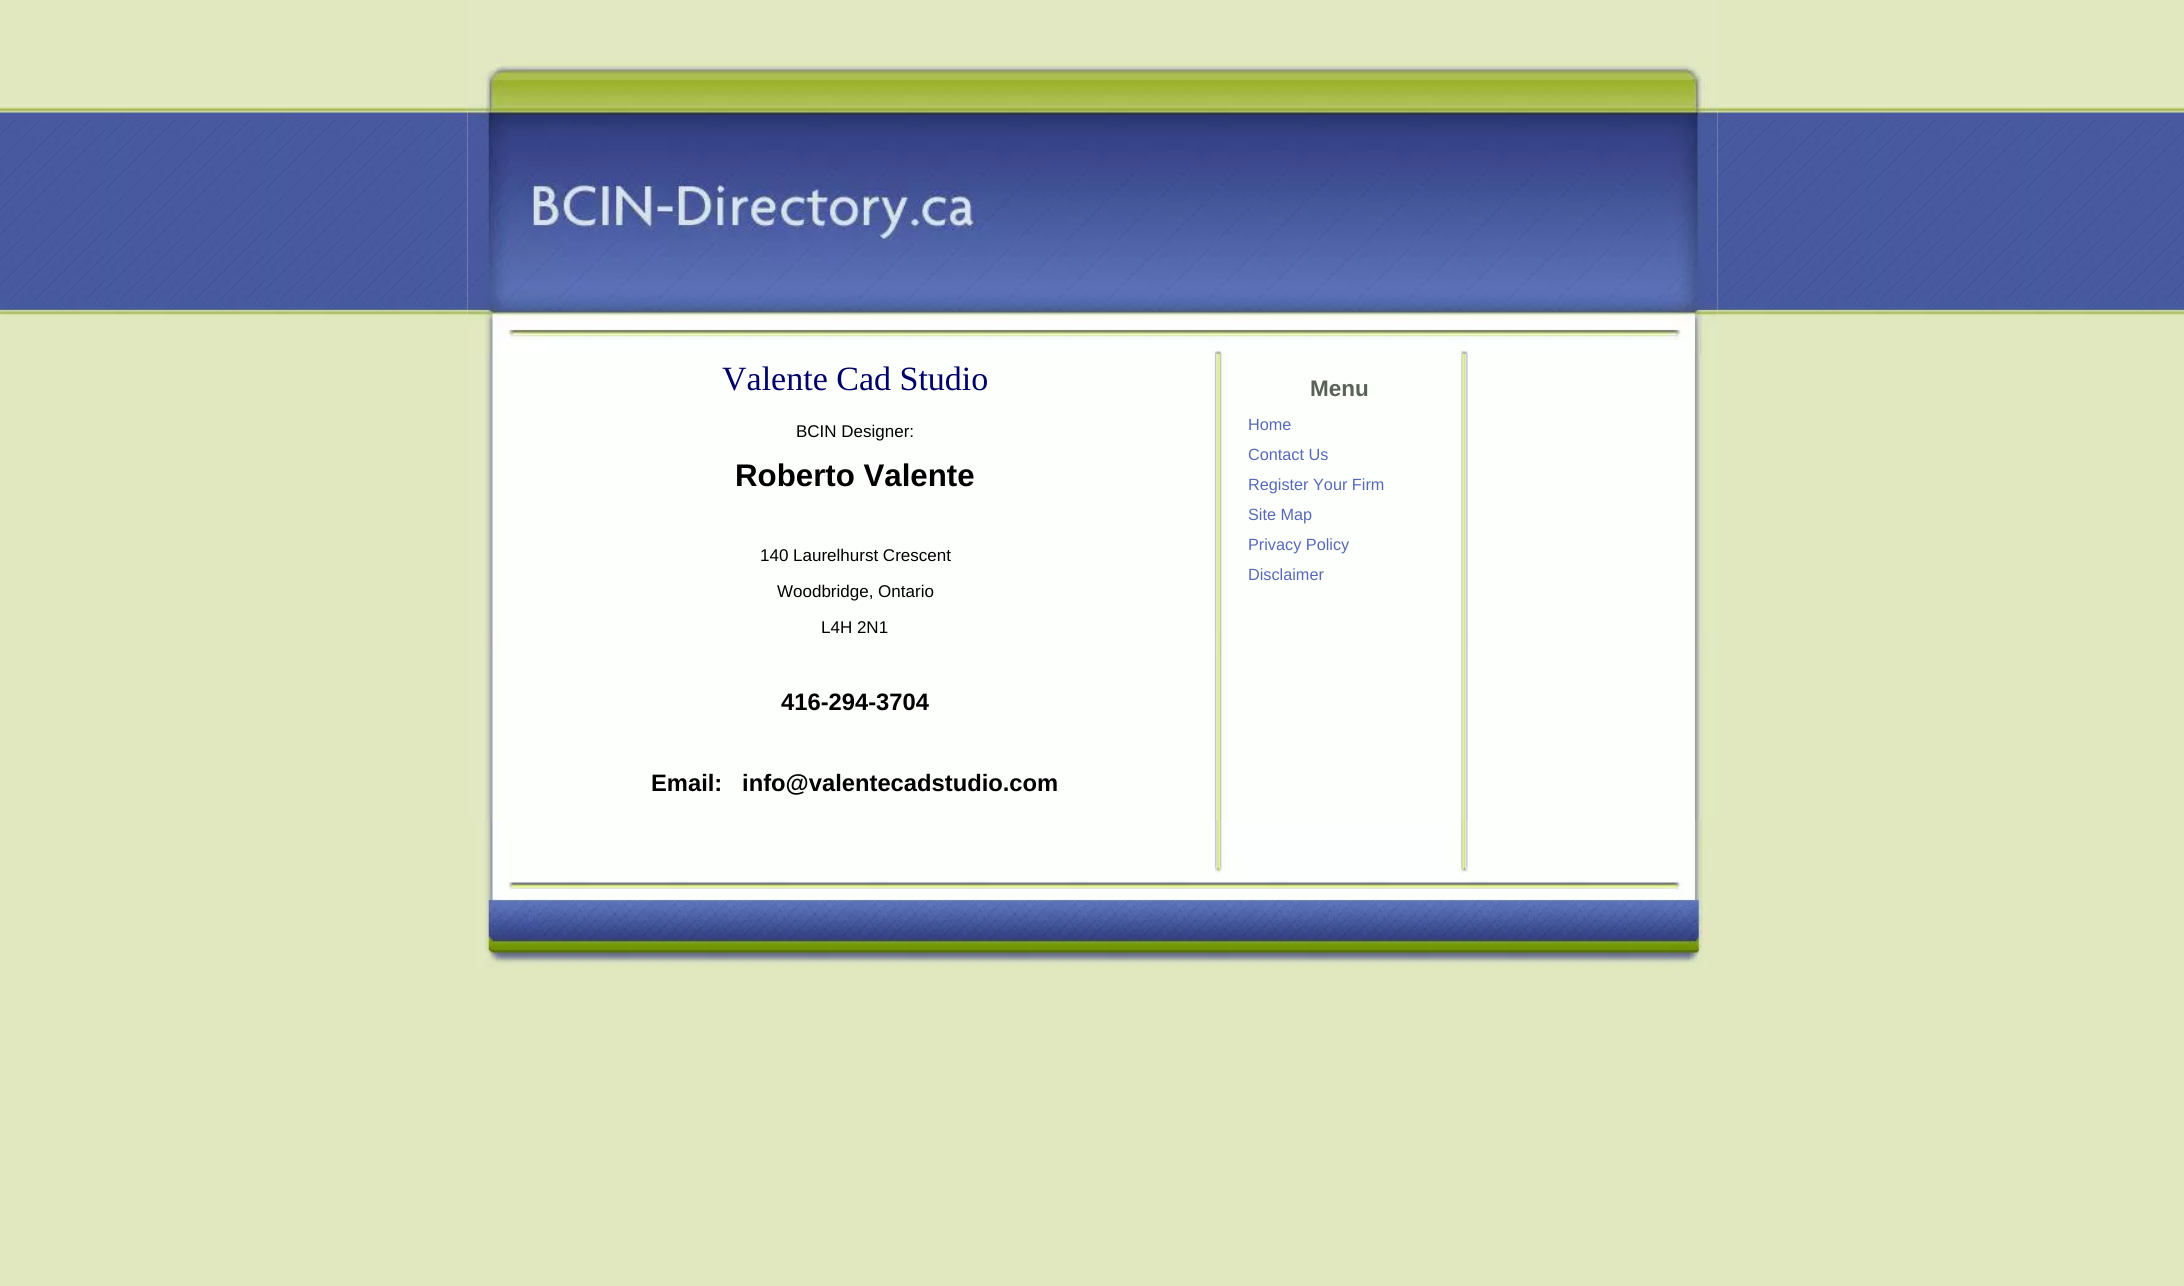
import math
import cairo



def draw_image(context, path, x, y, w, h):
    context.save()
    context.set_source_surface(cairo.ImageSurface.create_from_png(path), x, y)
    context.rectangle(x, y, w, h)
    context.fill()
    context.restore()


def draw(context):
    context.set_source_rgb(225 / 255, 231 / 255, 191 / 255)
    context.paint()
    draw_image(context, "images/1.png", 0, 105, 2184, 211)
    draw_image(context, "images/2.png", 467, 0, 1251, 1024)
    draw_image(context, "images/3.png", 467, 0, 1251, 354)
    context.set_source_rgb(225 / 255, 231 / 255, 191 / 255)
    context.rectangle(468, 820, 1249, 204)
    context.fill()
    draw_image(context, "images/4.png", 478, 820, 1230, 150)
    context.select_font_face("Liberation Serif")
    context.set_font_size(34)
    context.set_source_rgb(0, 0, 102 / 255)
    context.move_to(722, 390)
    context.show_text("Valente Cad Studio")
    context.select_font_face("Liberation Sans")
    context.set_font_size(17)
    context.set_source_rgb(0, 0, 0)
    context.move_to(796, 437)
    context.show_text("BCIN Designer:")
    context.select_font_face("Liberation Sans", cairo.FontSlant.NORMAL, cairo.FontWeight.BOLD)
    context.set_font_size(31.25)
    context.move_to(735, 486)
    context.show_text("Roberto Valente")
    context.select_font_face("Liberation Sans")
    context.set_font_size(17)
    context.move_to(760, 561)
    context.show_text("140 Laurelhurst Crescent")
    context.move_to(777, 597)
    context.show_text("Woodbridge, Ontario")
    context.move_to(821, 633)
    context.show_text("L4H 2N1")
    context.select_font_face("Liberation Sans", cairo.FontSlant.NORMAL, cairo.FontWeight.BOLD)
    context.set_font_size(23.75)
    context.move_to(781, 710)
    context.show_text("416-294-3704")
    context.move_to(651, 791)
    context.show_text("Email:   info@valentecadstudio.com")
    context.set_font_size(22.5)
    context.set_source_rgb(90 / 255, 97 / 255, 87 / 255)
    context.move_to(1310, 396)
    context.show_text("Menu")
    context.select_font_face("Liberation Sans")
    context.set_font_size(16.25)
    context.set_source_rgb(87 / 255, 105 / 255, 181 / 255)
    context.move_to(1248, 430)
    context.show_text("Home")
    context.move_to(1248, 460)
    context.show_text("Contact Us")
    context.move_to(1248, 490)
    context.show_text("Register Your Firm")
    context.move_to(1248, 520)
    context.show_text("Site Map")
    context.move_to(1248, 550)
    context.show_text("Privacy Policy")
    context.move_to(1248, 580)
    context.show_text("Disclaimer")


surface = cairo.ImageSurface(cairo.Format.RGB24, 2184, 1286)
context = cairo.Context(surface)
options = cairo.FontOptions()
options.set_hint_metrics(cairo.HintMetrics.OFF)
options.set_hint_style(cairo.HintStyle.NONE)
context.set_font_options(options)
context.set_miter_limit(4)
draw(context)
surface.write_to_png("out.png")
